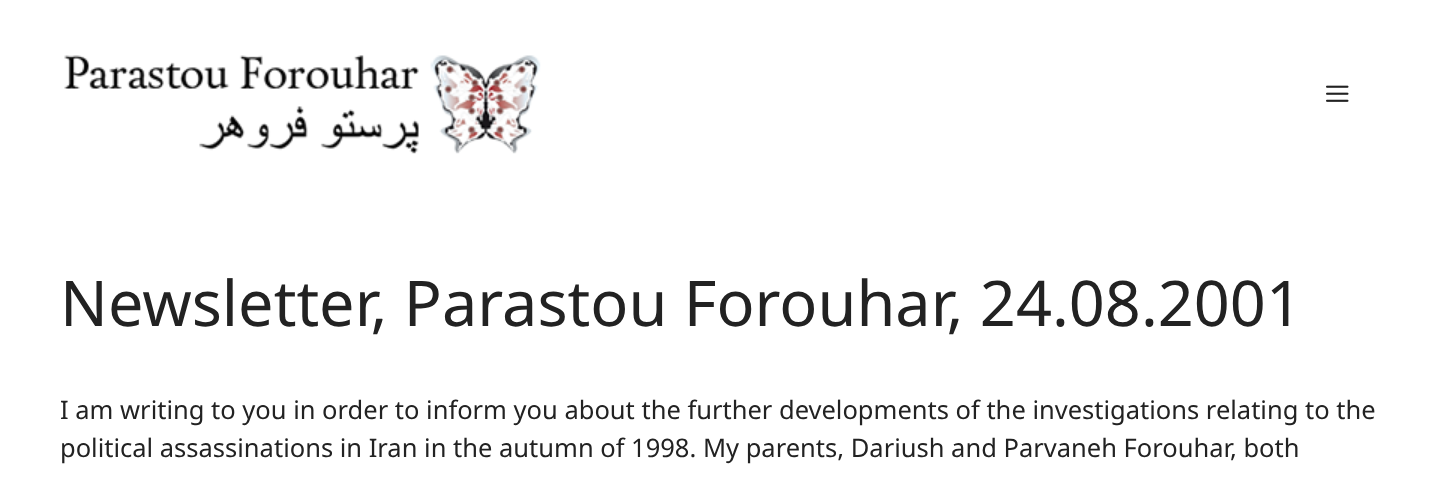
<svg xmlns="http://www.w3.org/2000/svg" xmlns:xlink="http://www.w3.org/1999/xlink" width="1438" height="488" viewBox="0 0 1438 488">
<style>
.cls-1{font:63px Noto Sans;fill:#222222}
.cls-2{font:25.5px Noto Sans;fill:#222222}
</style>
<rect width="100%" height="100%" fill="#ffffff"/>
<image xlink:href="image0.png" x="64" y="55" width="477" height="99"/>
<image xlink:href="image1.png" x="1326" y="85" width="23" height="17"/>
<text class="cls-1" x="60" y="326">Newsletter, Parastou Forouhar, 24.08.2001</text>
<text class="cls-2"><tspan x="60" y="419">I am writing to you in order to inform you about the further developments of the investigations relating to the</tspan><tspan x="60" y="457">political assassinations in Iran in the autumn of 1998. My parents, Dariush and Parvaneh Forouhar, both</tspan></text>
</svg>
